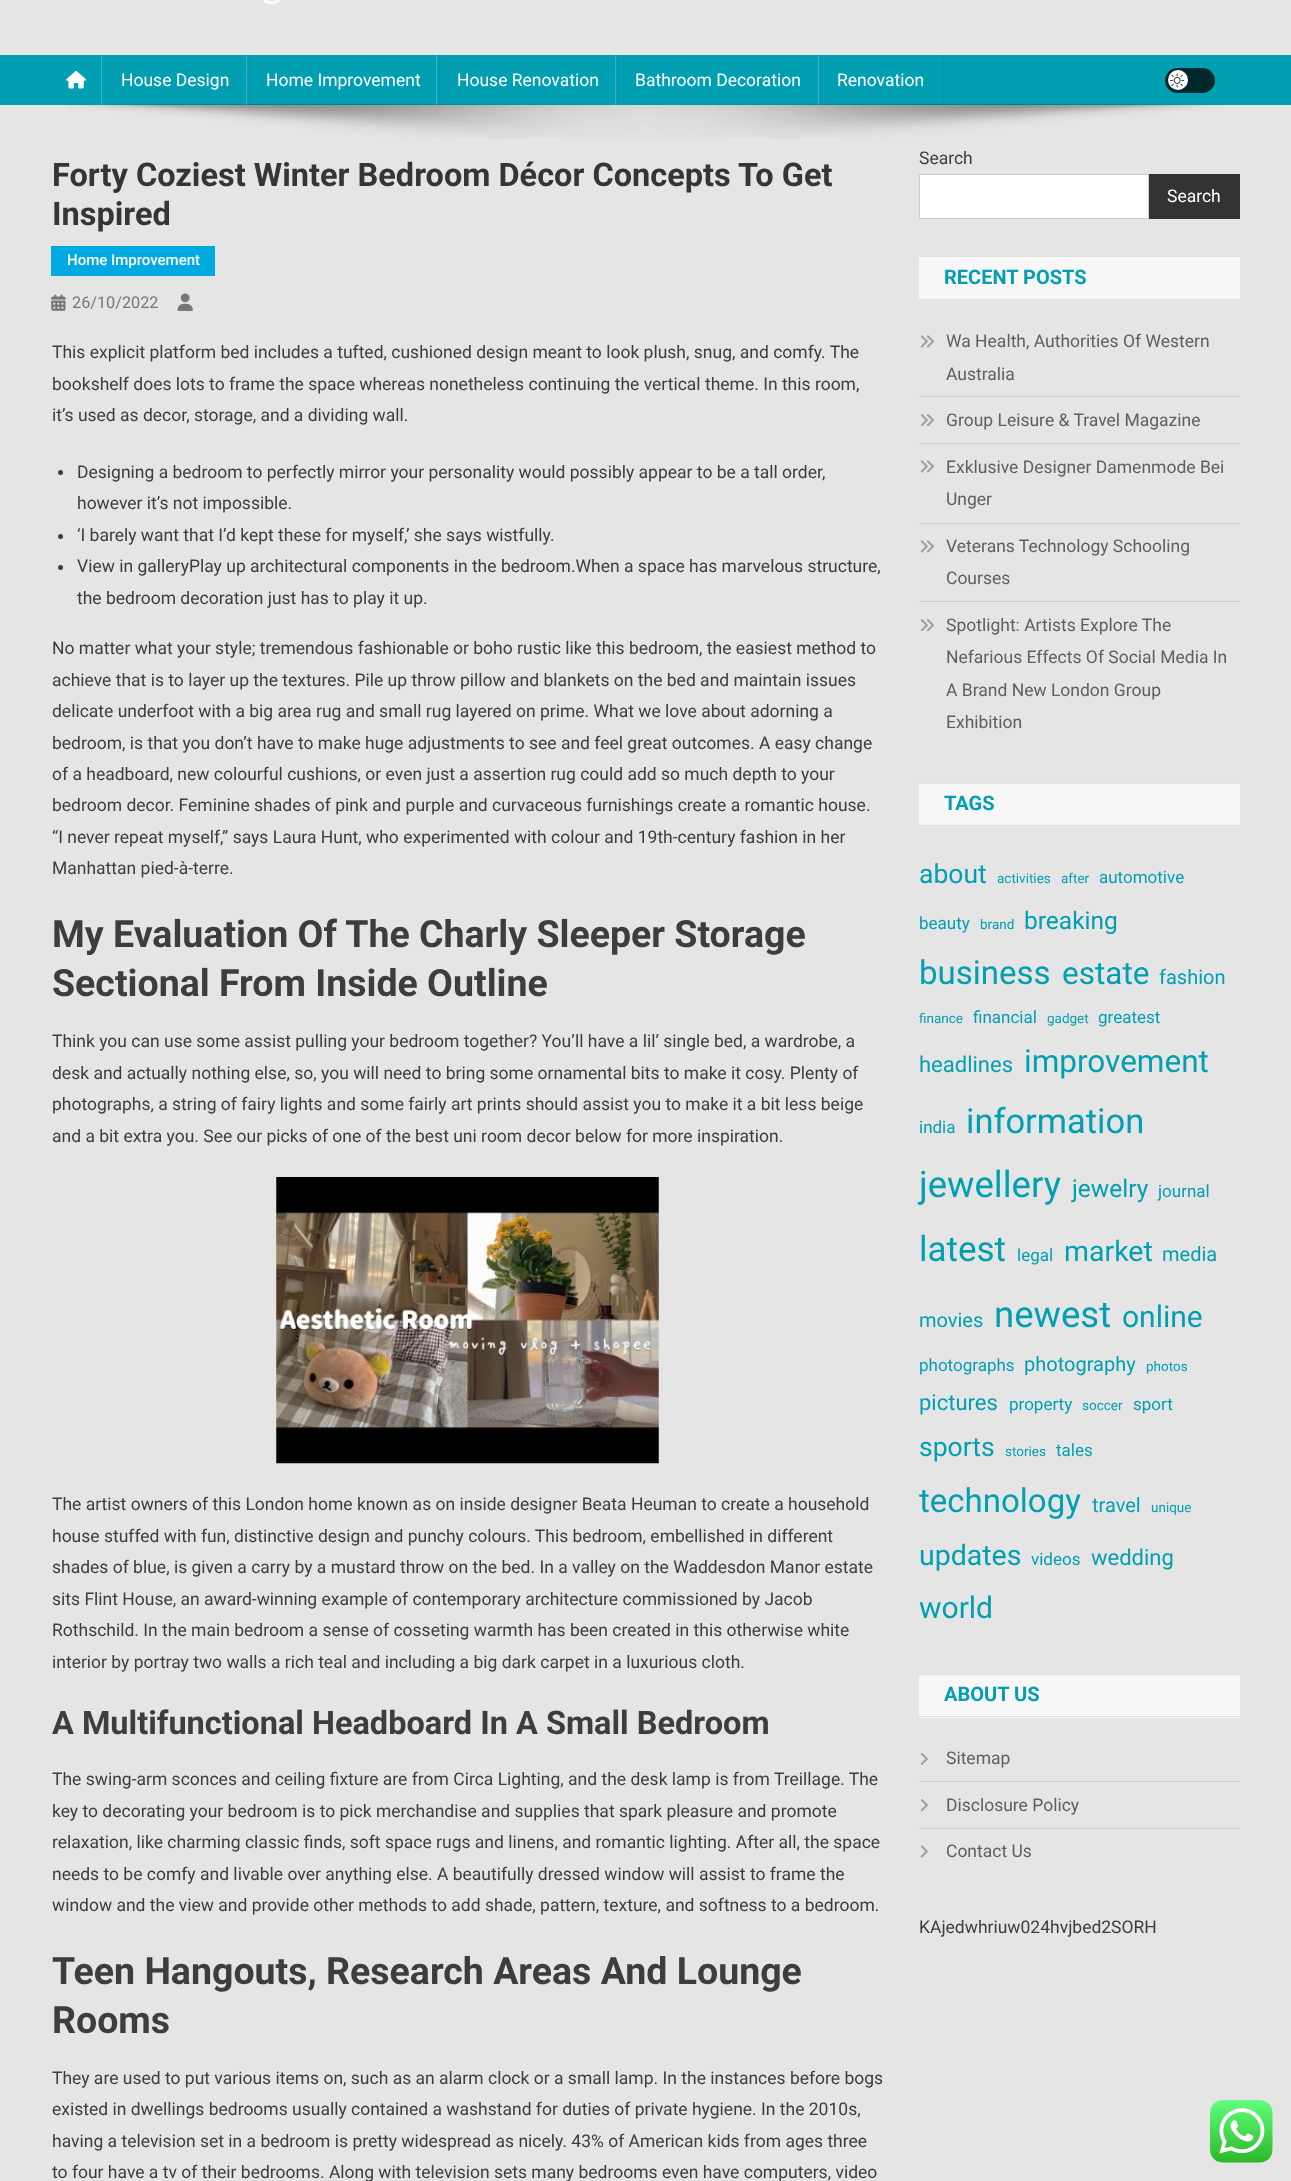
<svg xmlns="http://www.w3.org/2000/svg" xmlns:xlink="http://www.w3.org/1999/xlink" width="1291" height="2181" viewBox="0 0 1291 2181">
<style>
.cls-1{font:17.5px Roboto;fill:#ffffff}
.cls-2{font:bold 32.5px Roboto;fill:#353535}
.cls-3{font:500 15px Roboto;fill:#ffffff}
.cls-4{font:16.25px Roboto;fill:#767676}
.cls-5{font:17.5px Roboto;fill:#3d3d3d}
.cls-6{font:bold 37.5px Roboto;fill:#3d3d3d}
.cls-7{font:bold 32.5px Roboto;fill:#3d3d3d}
.cls-8{font:bold 20px Roboto;fill:#029fb2}
.cls-9{font:17.5px Roboto;fill:#5f5f5f}
.cls-10{font:26.5px Roboto;fill:#029fb2}
.cls-11{font:13.5px Roboto;fill:#029fb2}
.cls-12{font:17px Roboto;fill:#029fb2}
.cls-13{font:24.5px Roboto;fill:#029fb2}
.cls-14{font:33px Roboto;fill:#029fb2}
.cls-15{font:31.5px Roboto;fill:#029fb2}
.cls-16{font:20px Roboto;fill:#029fb2}
.cls-17{font:22px Roboto;fill:#029fb2}
.cls-18{font:34.5px Roboto;fill:#029fb2}
.cls-19{font:36.5px Roboto;fill:#029fb2}
.cls-20{font:35px Roboto;fill:#029fb2}
.cls-21{font:28.5px Roboto;fill:#029fb2}
.cls-22{font:30px Roboto;fill:#029fb2}
</style>
<rect width="100%" height="100%" fill="#e5e5e5"/>
<image xlink:href="image0.png" x="262" y="0" width="18" height="5"/>
<rect fill="#029fb2" x="0" y="55" width="1291" height="50"/>
<image xlink:href="image1.png" x="66" y="71" width="20" height="18"/>
<image xlink:href="image3.png" x="68" y="104" width="1154" height="35"/>
<rect fill="#000000" fill-opacity="0.08" x="249" y="55" width="1" height="50"/>
<rect fill="#ffffff" fill-opacity="0.2" x="101" y="55" width="1" height="50"/>
<rect fill="#000000" fill-opacity="0.08" x="439" y="55" width="1" height="50"/>
<rect fill="#ffffff" fill-opacity="0.2" x="246" y="55" width="1" height="50"/>
<rect fill="#000000" fill-opacity="0.08" x="618" y="55" width="1" height="50"/>
<rect fill="#ffffff" fill-opacity="0.2" x="436" y="55" width="1" height="50"/>
<rect fill="#000000" fill-opacity="0.08" x="820" y="55" width="1" height="50"/>
<rect fill="#ffffff" fill-opacity="0.2" x="615" y="55" width="1" height="50"/>
<rect fill="#000000" fill-opacity="0.08" x="943" y="55" width="1" height="50"/>
<rect fill="#ffffff" fill-opacity="0.2" x="818" y="55" width="1" height="50"/>
<rect fill="#01282d" x="1165" y="68" width="50" height="25" rx="12.5"/>
<circle fill="#ffffff" cx="1178" cy="80" r="10"/>
<image xlink:href="image2.png" x="1170" y="73" width="15" height="15"/>
<rect fill="#00a9e0" x="51" y="246" width="164" height="30"/>
<image xlink:href="image4.png" x="51" y="294" width="15" height="17"/>
<image xlink:href="image5.png" x="177" y="293" width="16" height="18"/>
<circle fill="#3d3d3d" cx="60.5" cy="472.5" r="2.5"/>
<circle fill="#3d3d3d" cx="60.5" cy="536.5" r="2.5"/>
<circle fill="#3d3d3d" cx="60.5" cy="567.5" r="2.5"/>
<image xlink:href="image6.png" x="276" y="1177" width="383" height="287"/>
<rect fill="#ffffff" stroke="#cccccc" x="919.5" y="174.5" width="229" height="44"/>
<rect fill="#333333" x="1149" y="174" width="91" height="45"/>
<rect fill="#f7f7f7" x="919" y="257" width="321" height="42"/>
<rect fill="#e1e1e1" x="919" y="256" width="321" height="1"/>
<rect fill="#e1e1e1" x="919" y="299" width="321" height="1"/>
<rect fill="#cecece" x="919" y="396" width="321" height="1"/>
<image xlink:href="image7.png" x="920" y="335" width="14" height="13"/>
<rect fill="#cecece" x="919" y="443" width="321" height="1"/>
<image xlink:href="image8.png" x="920" y="414" width="14" height="13"/>
<rect fill="#cecece" x="919" y="523" width="321" height="1"/>
<image xlink:href="image7.png" x="920" y="460" width="14" height="13"/>
<rect fill="#cecece" x="919" y="601" width="321" height="1"/>
<image xlink:href="image7.png" x="920" y="540" width="14" height="13"/>
<image xlink:href="image8.png" x="920" y="619" width="14" height="13"/>
<rect fill="#f7f7f7" x="919" y="784" width="321" height="41"/>
<rect fill="#e1e1e1" x="919" y="783" width="321" height="1"/>
<rect fill="#e1e1e1" x="919" y="825" width="321" height="1"/>
<rect fill="#f7f7f7" x="919" y="1675" width="321" height="43"/>
<rect fill="#e1e1e1" x="919" y="1674" width="321" height="1"/>
<rect fill="#e1e1e1" x="919" y="1716" width="321" height="1"/>
<rect fill="#cecece" x="919" y="1781" width="321" height="1"/>
<image xlink:href="image9.png" x="920" y="1752" width="8" height="13"/>
<rect fill="#cecece" x="919" y="1828" width="321" height="1"/>
<image xlink:href="image10.png" x="920" y="1799" width="8" height="13"/>
<image xlink:href="image11.png" x="920" y="1845" width="8" height="13"/>
<image xlink:href="image12.png" x="1210" y="2100" width="63" height="63"/>
<text class="cls-1" x="121" y="86">House Design</text>
<text class="cls-1" x="266" y="86">Home Improvement</text>
<text class="cls-1" x="457" y="86">House Renovation</text>
<text class="cls-1" x="635" y="86">Bathroom Decoration</text>
<text class="cls-1" x="837" y="86">Renovation</text>
<text class="cls-2"><tspan x="52" y="186">Forty Coziest Winter Bedroom Décor Concepts To Get</tspan><tspan x="52" y="225">Inspired</tspan></text>
<text class="cls-3" x="67" y="265">Home Improvement</text>
<text class="cls-4" x="72" y="308">26/10/2022</text>
<text class="cls-5"><tspan x="52" y="358">This explicit platform bed includes a tufted, cushioned design meant to look plush, snug, and comfy. The</tspan><tspan x="52" y="390">bookshelf does lots to frame the space whereas nonetheless continuing the vertical theme. In this room,</tspan><tspan x="52" y="421">it’s used as decor, storage, and a dividing wall.</tspan></text>
<text class="cls-5"><tspan x="77" y="478">Designing a bedroom to perfectly mirror your personality would possibly appear to be a tall order,</tspan><tspan x="77" y="509">however it’s not impossible.</tspan><tspan x="77" y="541">‘I barely want that I’d kept these for myself,’ she says wistfully.</tspan><tspan x="77" y="572">View in galleryPlay up architectural components in the bedroom.When a space has marvelous structure,</tspan><tspan x="77" y="604">the bedroom decoration just has to play it up.</tspan></text>
<text class="cls-5"><tspan x="52" y="654">No matter what your style; tremendous fashionable or boho rustic like this bedroom, the easiest method to</tspan><tspan x="52" y="686">achieve that is to layer up the textures. Pile up throw pillow and blankets on the bed and maintain issues</tspan><tspan x="52" y="717">delicate underfoot with a big area rug and small rug layered on prime. What we love about adorning a</tspan><tspan x="52" y="749">bedroom, is that you don’t have to make huge adjustments to see and feel great outcomes. A easy change</tspan><tspan x="52" y="780">of a headboard, new colourful cushions, or even just a assertion rug could add so much depth to your</tspan><tspan x="52" y="811">bedroom decor. Feminine shades of pink and purple and curvaceous furnishings create a romantic house.</tspan><tspan x="52" y="843">“I never repeat myself,” says Laura Hunt, who experimented with colour and 19th-century fashion in her</tspan><tspan x="52" y="874">Manhattan pied-à-terre.</tspan></text>
<text class="cls-6"><tspan x="52" y="947">My Evaluation Of The Charly Sleeper Storage</tspan><tspan x="52" y="996">Sectional From Inside Outline</tspan></text>
<text class="cls-5"><tspan x="52" y="1047">Think you can use some assist pulling your bedroom together? You’ll have a lil’ single bed, a wardrobe, a</tspan><tspan x="52" y="1079">desk and actually nothing else, so, you will need to bring some ornamental bits to make it cosy. Plenty of</tspan><tspan x="52" y="1110">photographs, a string of fairy lights and some fairly art prints should assist you to make it a bit less beige</tspan><tspan x="52" y="1142">and a bit extra you. See our picks of one of the best uni room decor below for more inspiration.</tspan></text>
<text class="cls-5"><tspan x="52" y="1510">The artist owners of this London home known as on inside designer Beata Heuman to create a household</tspan><tspan x="52" y="1542">house stuffed with fun, distinctive design and punchy colours. This bedroom, embellished in different</tspan><tspan x="52" y="1573">shades of blue, is given a carry by a mustard throw on the bed. In a valley on the Waddesdon Manor estate</tspan><tspan x="52" y="1605">sits Flint House, an award-winning example of contemporary architecture commissioned by Jacob</tspan><tspan x="52" y="1636">Rothschild. In the main bedroom a sense of cosseting warmth has been created in this otherwise white</tspan><tspan x="52" y="1668">interior by portray two walls a rich teal and including a big dark carpet in a luxurious cloth.</tspan></text>
<text class="cls-7" x="52" y="1734">A Multifunctional Headboard In A Small Bedroom</text>
<text class="cls-5"><tspan x="52" y="1785">The swing-arm sconces and ceiling fixture are from Circa Lighting, and the desk lamp is from Treillage. The</tspan><tspan x="52" y="1817">key to decorating your bedroom is to pick merchandise and supplies that spark pleasure and promote</tspan><tspan x="52" y="1848">relaxation, like charming classic finds, soft space rugs and linens, and romantic lighting. After all, the space</tspan><tspan x="52" y="1880">needs to be comfy and livable over anything else. A beautifully dressed window will assist to frame the</tspan><tspan x="52" y="1911">window and the view and provide other methods to add shade, pattern, texture, and softness to a bedroom.</tspan></text>
<text class="cls-6"><tspan x="52" y="1984">Teen Hangouts, Research Areas And Lounge</tspan><tspan x="52" y="2033">Rooms</tspan></text>
<text class="cls-5"><tspan x="52" y="2084">They are used to put various items on, such as an alarm clock or a small lamp. In the instances before bogs</tspan><tspan x="52" y="2115">existed in dwellings bedrooms usually contained a washstand for duties of private hygiene. In the 2010s,</tspan><tspan x="52" y="2147">having a television set in a bedroom is pretty widespread as nicely. 43% of American kids from ages three</tspan><tspan x="52" y="2178">to four have a tv of their bedrooms. Along with television sets many bedrooms even have computers, video</tspan></text>
<text class="cls-5" x="919" y="164">Search</text>
<text class="cls-1" x="1167" y="202">Search</text>
<text class="cls-8" x="944" y="284">RECENT POSTS</text>
<text class="cls-9"><tspan x="946" y="347">Wa Health, Authorities Of Western</tspan><tspan x="946" y="380">Australia</tspan></text>
<text class="cls-9" x="946" y="426">Group Leisure &amp; Travel Magazine</text>
<text class="cls-9"><tspan x="946" y="473">Exklusive Designer Damenmode Bei</tspan><tspan x="946" y="505">Unger</tspan></text>
<text class="cls-9"><tspan x="946" y="552">Veterans Technology Schooling</tspan><tspan x="946" y="584">Courses</tspan></text>
<text class="cls-9"><tspan x="946" y="631">Spotlight: Artists Explore The</tspan><tspan x="946" y="663">Nefarious Effects Of Social Media In</tspan><tspan x="946" y="696">A Brand New London Group</tspan><tspan x="946" y="728">Exhibition</tspan></text>
<text class="cls-8" x="944" y="810">TAGS</text>
<text class="cls-10" x="919" y="883">about</text>
<text class="cls-11" x="997" y="883">activities</text>
<text class="cls-11" x="1061" y="883">after</text>
<text class="cls-12" x="1099" y="883">automotive</text>
<text class="cls-12" x="919" y="929">beauty</text>
<text class="cls-11" x="980" y="929">brand</text>
<text class="cls-13" x="1024" y="929">breaking</text>
<text class="cls-14" x="919" y="984">business</text>
<text class="cls-15" x="1062" y="984">estate</text>
<text class="cls-16" x="1159" y="984">fashion</text>
<text class="cls-11" x="919" y="1023">finance</text>
<text class="cls-12" x="973" y="1023">financial</text>
<text class="cls-11" x="1047" y="1023">gadget</text>
<text class="cls-12" x="1098" y="1023">greatest</text>
<text class="cls-17" x="919" y="1072">headlines</text>
<text class="cls-15" x="1024" y="1072">improvement</text>
<text class="cls-12" x="919" y="1133">india</text>
<text class="cls-18" x="966" y="1133">information</text>
<text class="cls-19" x="919" y="1197">jewellery</text>
<text class="cls-13" x="1072" y="1197">jewelry</text>
<text class="cls-12" x="1158" y="1197">journal</text>
<text class="cls-20" x="919" y="1261">latest</text>
<text class="cls-12" x="1017" y="1261">legal</text>
<text class="cls-21" x="1064" y="1261">market</text>
<text class="cls-16" x="1162" y="1261">media</text>
<text class="cls-16" x="919" y="1327">movies</text>
<text class="cls-19" x="994" y="1327">newest</text>
<text class="cls-22" x="1122" y="1327">online</text>
<text class="cls-12" x="919" y="1371">photographs</text>
<text class="cls-16" x="1024" y="1371">photography</text>
<text class="cls-11" x="1146" y="1371">photos</text>
<text class="cls-17" x="919" y="1410">pictures</text>
<text class="cls-12" x="1009" y="1410">property</text>
<text class="cls-11" x="1082" y="1410">soccer</text>
<text class="cls-12" x="1133" y="1410">sport</text>
<text class="cls-10" x="919" y="1456">sports</text>
<text class="cls-11" x="1005" y="1456">stories</text>
<text class="cls-12" x="1056" y="1456">tales</text>
<text class="cls-14" x="919" y="1512">technology</text>
<text class="cls-16" x="1092" y="1512">travel</text>
<text class="cls-11" x="1151" y="1512">unique</text>
<text class="cls-21" x="919" y="1565">updates</text>
<text class="cls-12" x="1031" y="1565">videos</text>
<text class="cls-17" x="1091" y="1565">wedding</text>
<text class="cls-22" x="919" y="1618">world</text>
<text class="cls-8" x="944" y="1701">ABOUT US</text>
<text class="cls-9" x="946" y="1764">Sitemap</text>
<text class="cls-9" x="946" y="1811">Disclosure Policy</text>
<text class="cls-9" x="946" y="1857">Contact Us</text>
<text class="cls-5" x="919" y="1933">KAjedwhriuw024hvjbed2SORH</text>
</svg>
